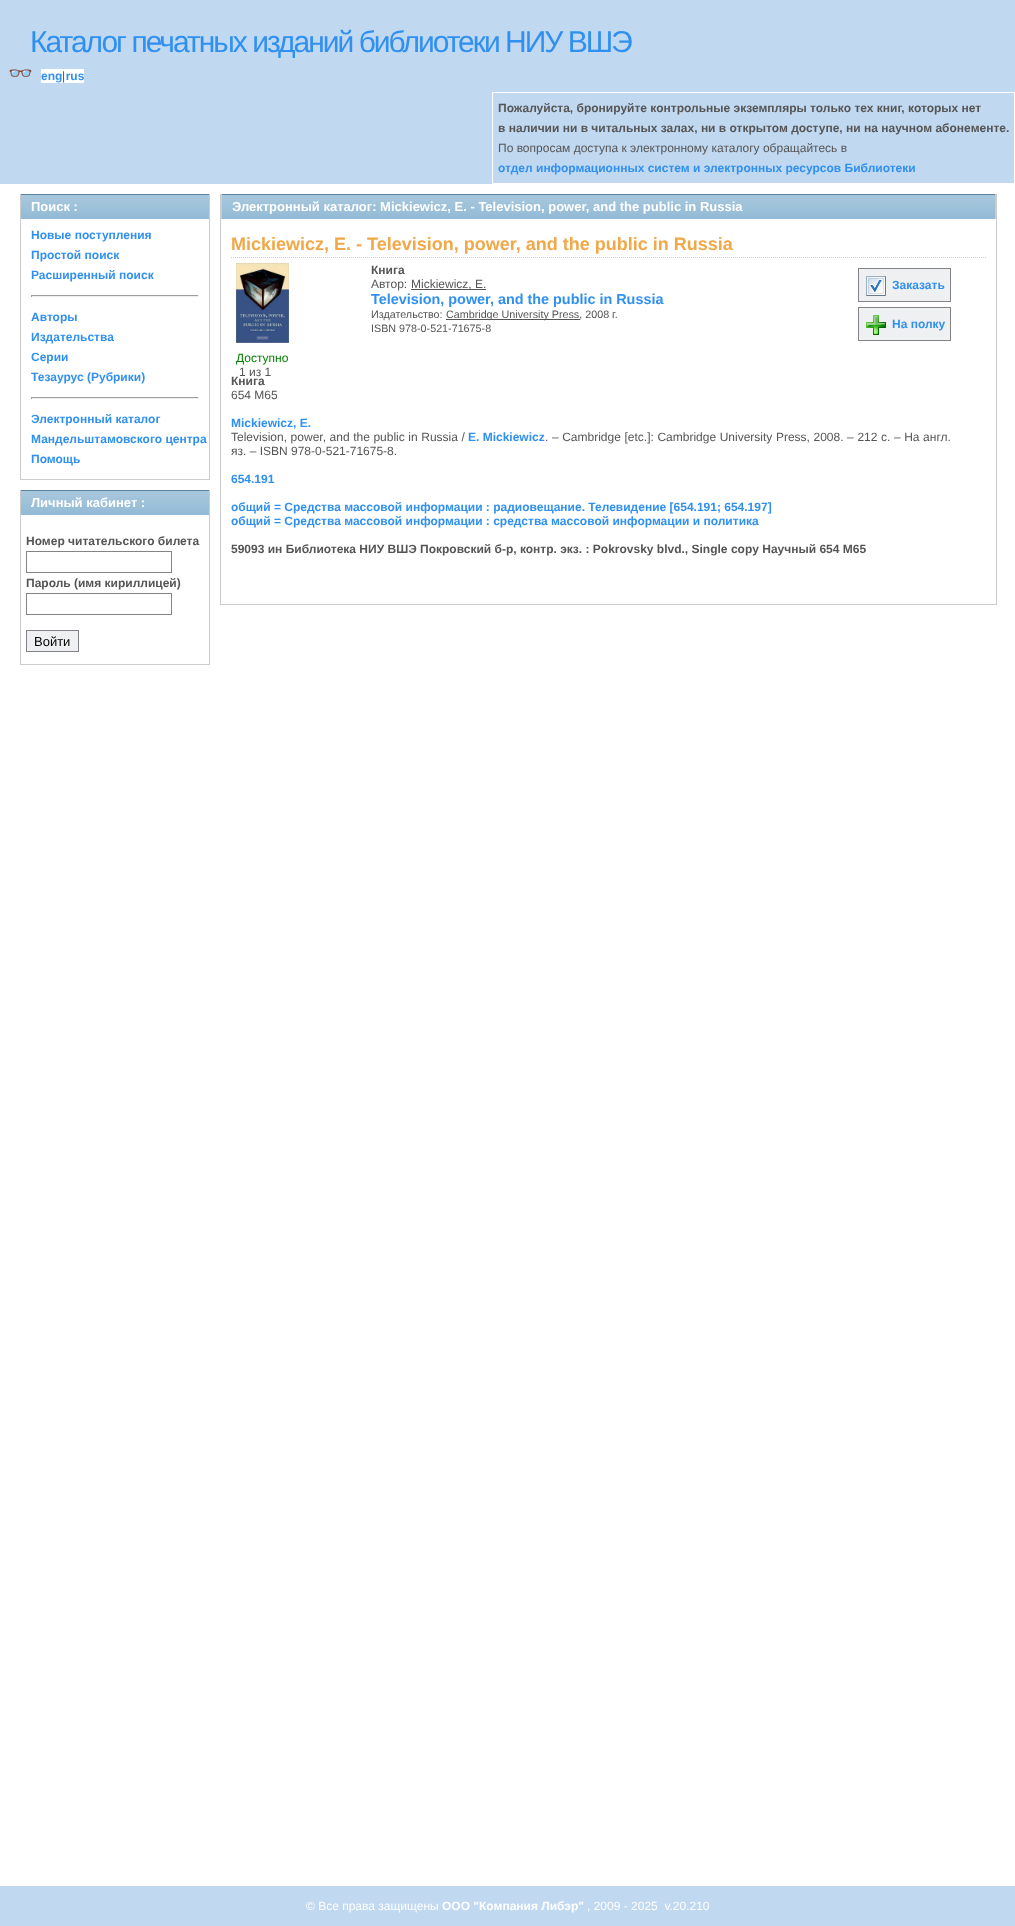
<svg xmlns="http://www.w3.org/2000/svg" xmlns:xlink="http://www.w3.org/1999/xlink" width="1015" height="1926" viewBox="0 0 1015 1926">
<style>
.cls-1{font:30px Liberation Sans;letter-spacing:-2px;fill:#3090f0}
.cls-2{font:bold 20px Noto Color Emoji;fill:#3090f0}
.cls-3{font:bold 12px Liberation Sans;fill:#3090f0}
.cls-4{font:12px Liberation Sans;fill:#555555}
.cls-5{font:bold 12px Liberation Sans;fill:#555555}
.cls-6{font:bold 13px Liberation Sans;fill:#ffffff}
.cls-7{font:13px Liberation Sans;fill:#000000}
.cls-8{font:bold 18px Liberation Sans;fill:#f0a848}
.cls-9{font:bold 14.4px Liberation Sans;fill:#3090f0}
.cls-10{font:10.75px Liberation Sans;fill:#555555}
.cls-11{font:12px Liberation Sans;fill:#008000}
.cls-12{font:12px Liberation Sans;fill:#ffffff}
.cls-13{font:bold 12px Liberation Sans;fill:#ffffff}
</style>
<rect width="100%" height="100%" fill="#ffffff"/>
<rect fill="#c0d8f0" x="0" y="0" width="1015" height="184"/>
<rect fill="#ffffff" x="41" y="69" width="43" height="14"/>
<rect fill="none" stroke="#ffffff" x="492.5" y="92.5" width="522" height="91"/>
<image xlink:href="image0.png" x="21" y="194" width="188" height="25"/>
<rect fill="#cccccc" x="209" y="194" width="1" height="286"/>
<rect fill="#cccccc" x="20" y="194" width="1" height="25"/>
<rect fill="#cccccc" x="20" y="479" width="190" height="1"/>
<rect fill="#cccccc" x="20" y="219" width="1" height="261"/>
<rect fill="#9f9f9f" x="31" y="295" width="168" height="1"/>
<rect fill="#eeeeee" x="198" y="295" width="1" height="2"/>
<rect fill="#eeeeee" x="31" y="296" width="168" height="1"/>
<rect fill="#9f9f9f" x="31" y="295" width="1" height="2"/>
<rect fill="#9f9f9f" x="31" y="397" width="168" height="1"/>
<rect fill="#eeeeee" x="198" y="397" width="1" height="2"/>
<rect fill="#eeeeee" x="31" y="398" width="168" height="1"/>
<rect fill="#9f9f9f" x="31" y="397" width="1" height="2"/>
<image xlink:href="image0.png" x="21" y="490" width="188" height="25"/>
<rect fill="#cccccc" x="209" y="490" width="1" height="175"/>
<rect fill="#cccccc" x="20" y="490" width="1" height="25"/>
<rect fill="#cccccc" x="20" y="664" width="190" height="1"/>
<rect fill="#cccccc" x="20" y="515" width="1" height="150"/>
<rect fill="none" stroke="#848388" x="26.5" y="551.5" width="145" height="21"/>
<rect fill="none" stroke="#848388" x="26.5" y="593.5" width="145" height="21"/>
<rect fill="#eef0f1" stroke="#848388" x="26.5" y="630.5" width="52" height="21"/>
<rect fill="#cccccc" x="996" y="194" width="1" height="411"/>
<rect fill="#cccccc" x="220" y="604" width="777" height="1"/>
<rect fill="#cccccc" x="220" y="194" width="1" height="411"/>
<image xlink:href="image1.png" x="222" y="194" width="773" height="25"/>
<rect fill="#cccccc" x="995" y="194" width="1" height="25"/>
<rect fill="#cccccc" x="221" y="194" width="1" height="25"/>
<path fill="none" stroke="#cccccc" stroke-dasharray="1 1" d="M231 257.5H986"/>
<rect fill="#555555" x="411" y="289" width="75" height="1"/>
<rect fill="#555555" x="446" y="319" width="134" height="1"/>
<rect fill="#eef0f1" stroke="#848388" x="858.5" y="268.5" width="92" height="33"/>
<image xlink:href="image2.png" x="866" y="276" width="20" height="20"/>
<rect fill="#eef0f1" stroke="#848388" x="858.5" y="307.5" width="92" height="33"/>
<image xlink:href="image3.png" x="866" y="315" width="20" height="20"/>
<image xlink:href="image4.png" x="236" y="263" width="53" height="80"/>
<rect fill="#c0d8f0" x="0" y="1886" width="1015" height="40"/>
<text class="cls-1" x="30" y="52">Каталог печатных изданий библиотеки НИУ ВШЭ</text>
<text class="cls-2" x="8" y="80">👓</text>
<text class="cls-3" x="41" y="80">eng rus</text>
<text class="cls-4" x="62" y="80">|</text>
<text class="cls-5"><tspan x="498" y="112">Пожалуйста, бронируйте контрольные экземпляры только тех книг, которых нет</tspan><tspan x="498" y="132">в наличии ни в читальных залах, ни в открытом доступе, ни на научном абонементе.</tspan></text>
<text class="cls-4" x="498" y="152">По вопросам доступа к электронному каталогу обращайтесь в</text>
<text class="cls-3" x="498" y="172">отдел информационных систем и электронных ресурсов Библиотеки</text>
<text class="cls-6" x="31" y="211">Поиск :</text>
<text class="cls-3"><tspan x="31" y="239">Новые поступления</tspan><tspan x="31" y="259">Простой поиск</tspan><tspan x="31" y="279">Расширенный поиск</tspan></text>
<text class="cls-3"><tspan x="31" y="321">Авторы</tspan><tspan x="31" y="341">Издательства</tspan><tspan x="31" y="361">Серии</tspan><tspan x="31" y="381">Тезаурус (Рубрики)</tspan></text>
<text class="cls-3"><tspan x="31" y="423">Электронный каталог</tspan><tspan x="31" y="443">Мандельштамовского центра</tspan><tspan x="31" y="463">Помощь</tspan></text>
<text class="cls-6" x="31" y="507">Личный кабинет :</text>
<text class="cls-5" x="26" y="545">Номер читательского билета</text>
<text class="cls-5" x="26" y="587">Пароль (имя кириллицей)</text>
<text class="cls-7" x="34" y="646">Войти</text>
<text class="cls-6" x="232" y="211">Электронный каталог: Mickiewicz, E. - Television, power, and the public in Russia</text>
<text class="cls-8" x="231" y="250">Mickiewicz, E. - Television, power, and the public in Russia</text>
<text class="cls-5" x="371" y="274">Книга</text>
<text class="cls-4" x="371" y="288">Автор:</text>
<text class="cls-4" x="411" y="288">Mickiewicz, E.</text>
<text class="cls-9" x="371" y="304">Television, power, and the public in Russia</text>
<text class="cls-10" x="371" y="318">Издательство:</text>
<text class="cls-10" x="446" y="318">Cambridge University Press, 2008 г.</text>
<text class="cls-10" x="371" y="332">ISBN 978-0-521-71675-8</text>
<text class="cls-3" x="892" y="289">Заказать</text>
<text class="cls-3" x="892" y="328">На полку</text>
<text class="cls-11" x="236" y="362">Доступно</text>
<text class="cls-4" x="239" y="376">1 из 1</text>
<text class="cls-5" x="231" y="385">Книга</text>
<text class="cls-4" x="231" y="399">654 M65</text>
<text class="cls-3" x="231" y="427">Mickiewicz, E.</text>
<text class="cls-4" x="231" y="441" word-spacing="0.25">Television, power, and the public in Russia /</text>
<text class="cls-3" x="468" y="441">E. Mickiewicz</text>
<text class="cls-4" x="545" y="441" word-spacing="0.25">. – Cambridge [etc.]: Cambridge University Press, 2008. – 212 с. – На англ.</text>
<text class="cls-4" x="231" y="455">яз. – ISBN 978-0-521-71675-8.</text>
<text class="cls-3" x="231" y="483">654.191</text>
<text class="cls-3"><tspan x="231" y="511">общий = Средства массовой информации : радиовещание. Телевидение [654.191; 654.197]</tspan><tspan x="231" y="525">общий = Средства массовой информации : средства массовой информации и политика</tspan></text>
<text class="cls-5" x="231" y="553">59093 ин Библиотека НИУ ВШЭ Покровский б-р, контр. экз. : Pokrovsky blvd., Single copy Научный 654 M65</text>
<text class="cls-12" x="306" y="1910">© Все права защищены</text>
<text class="cls-13" x="442" y="1910">ООО "Компания Либэр"</text>
<text class="cls-12" xml:space="preserve" x="587" y="1910">, 2009 - 2025  v.20.210</text>
</svg>
